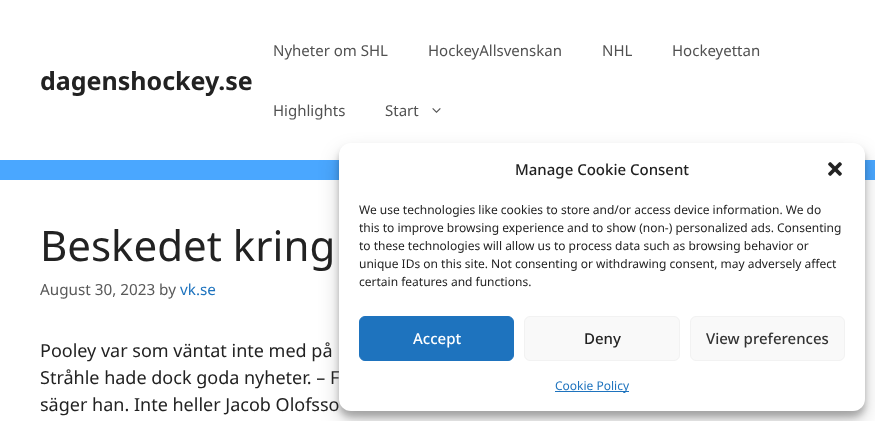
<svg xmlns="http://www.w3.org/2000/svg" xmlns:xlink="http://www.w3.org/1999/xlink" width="875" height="421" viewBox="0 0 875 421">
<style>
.cls-1{font:bold 25px Noto Sans;fill:#222222}
.cls-2{font:15px Noto Sans;fill:#515151}
.cls-3{font:42px Noto Sans;fill:#222222}
.cls-4{font:15.25px Noto Sans;fill:#595959}
.cls-5{font:15.25px Noto Sans;fill:#1e73be}
.cls-6{font:18px Noto Sans;fill:#222222}
.cls-7{font:500 15px Noto Sans;fill:#222222}
.cls-8{font:12px Noto Sans;fill:#222222}
.cls-9{font:500 15px Noto Sans;fill:#ffffff}
.cls-10{font:500 15px Noto Sans;fill:#333333}
.cls-11{font:12px Noto Sans;fill:#1e73be}
</style>
<rect width="100%" height="100%" fill="#4aa7ff"/>
<rect fill="#ffffff" x="0" y="0" width="875" height="160"/>
<image xlink:href="image0.png" x="432" y="108" width="9" height="5"/>
<rect fill="#ffffff" x="0" y="180" width="875" height="241"/>
<rect fill="#000000" fill-opacity="0.23" filter="blur(3px)" x="339" y="149" width="526" height="268" rx="12"/>
<rect fill="#000000" fill-opacity="0.19" filter="blur(10px)" x="339" y="153" width="526" height="268" rx="12"/>
<rect fill="#ffffff" x="339" y="143" width="526" height="268" rx="12"/>
<image xlink:href="image1.png" x="828" y="162" width="14" height="14"/>
<rect fill="#1e73be" stroke="#1e73be" x="359.5" y="316.5" width="154" height="44" rx="5.5"/>
<rect fill="#f9f9f9" stroke="#f2f2f2" x="524.5" y="316.5" width="155" height="44" rx="5.5"/>
<rect fill="#f9f9f9" stroke="#f2f2f2" x="690.5" y="316.5" width="154" height="44" rx="5.5"/>
<rect fill="#1e73be" x="555" y="391" width="74" height="1"/>
<text class="cls-1" x="40" y="90">dagenshockey.se</text>
<text class="cls-2" x="273" y="56">Nyheter om SHL</text>
<text class="cls-2" x="428" y="56">HockeyAllsvenskan</text>
<text class="cls-2" x="602" y="56">NHL</text>
<text class="cls-2" x="672" y="56">Hockeyettan</text>
<text class="cls-2" x="273" y="116">Highlights</text>
<text class="cls-2" x="385" y="116">Start</text>
<text class="cls-3" x="40" y="261">Beskedet kring</text>
<text class="cls-4" x="40" y="295">August 30, 2023 by</text>
<text class="cls-5" x="180" y="295">vk.se</text>
<text class="cls-6"><tspan x="40" y="357">Pooley var som väntat inte med på</tspan><tspan x="40" y="384">Stråhle hade dock goda nyheter. – F</tspan><tspan x="40" y="411">säger han. Inte heller Jacob Olofsso</tspan></text>
<text class="cls-7" x="515" y="175">Manage Cookie Consent</text>
<text class="cls-8"><tspan x="359" y="214">We use technologies like cookies to store and/or access device information. We do</tspan><tspan x="359" y="232">this to improve browsing experience and to show (non-) personalized ads. Consenting</tspan><tspan x="359" y="250">to these technologies will allow us to process data such as browsing behavior or</tspan><tspan x="359" y="268">unique IDs on this site. Not consenting or withdrawing consent, may adversely affect</tspan><tspan x="359" y="286">certain features and functions.</tspan></text>
<text class="cls-9" x="413" y="344">Accept</text>
<text class="cls-7" x="584" y="344">Deny</text>
<text class="cls-10" x="706" y="344">View preferences</text>
<text class="cls-11" x="555" y="390">Cookie Policy</text>
</svg>
